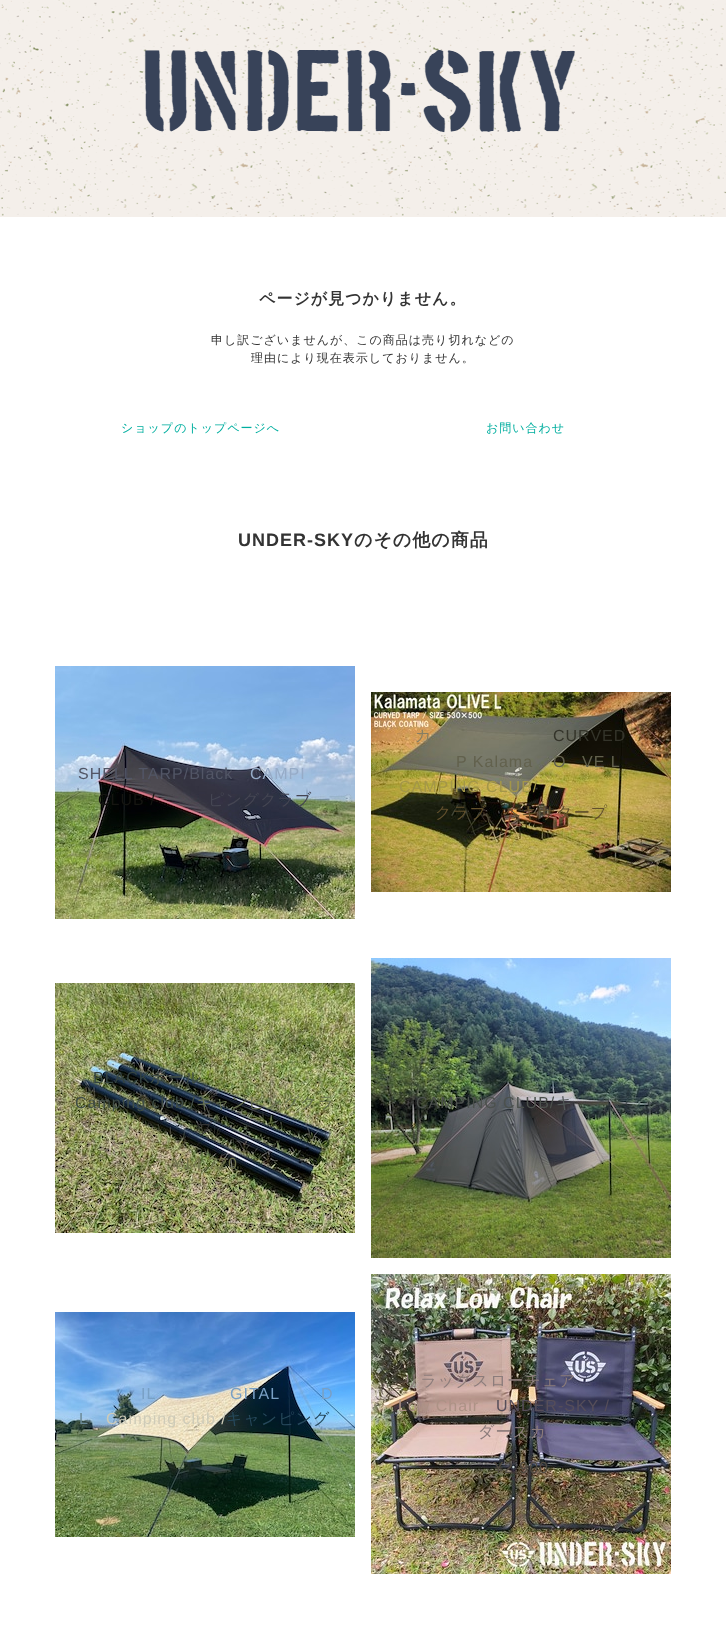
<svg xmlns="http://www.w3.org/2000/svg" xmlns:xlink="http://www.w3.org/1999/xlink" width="726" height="1632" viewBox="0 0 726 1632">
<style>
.cls-1{font:bold 16px WenQuanYi Zen Hei;letter-spacing:1px;fill:#333333}
.cls-2{font:500 12px WenQuanYi Zen Hei;letter-spacing:1px;fill:#333333}
.cls-3{font:500 12px WenQuanYi Zen Hei;letter-spacing:1px;fill:#00ae9f}
.cls-4{font:bold 18px Liberation Sans;letter-spacing:1px;fill:#333333}
.cls-5{font:bold 18px WenQuanYi Zen Hei;letter-spacing:1px;fill:#333333}
.cls-6{font:16px Liberation Sans;letter-spacing:1px;fill:#525666}
.cls-7{font:16px Liberation Sans;letter-spacing:1px;fill:#96abc7}
.cls-8{font:16px Liberation Sans;letter-spacing:1px;fill:#151511}
.cls-9{font:500 16px WenQuanYi Zen Hei;letter-spacing:1px;fill:#454653}
.cls-10{font:500 16px WenQuanYi Zen Hei;letter-spacing:1px;fill:#867e64}
.cls-11{font:16px Liberation Sans;letter-spacing:1px;fill:#34342a}
.cls-12{font:16px Liberation Sans;letter-spacing:1px;fill:#62614d}
.cls-13{font:16px Liberation Sans;letter-spacing:1px;fill:#a39649}
.cls-14{font:500 16px WenQuanYi Zen Hei;letter-spacing:1px;fill:#62502d}
.cls-15{font:16px Liberation Sans;letter-spacing:1px;fill:#344341}
.cls-16{font:500 16px WenQuanYi Zen Hei;letter-spacing:1px;fill:#404d46}
.cls-17{font:16px Liberation Sans;letter-spacing:1px;fill:#404d46}
.cls-18{font:500 16px WenQuanYi Zen Hei;letter-spacing:1px;fill:#677151}
.cls-19{font:500 16px WenQuanYi Zen Hei;letter-spacing:1px;fill:#333333}
.cls-20{font:16px Liberation Sans;letter-spacing:1px;fill:#70734e}
.cls-21{font:16px Liberation Sans;letter-spacing:1px;fill:#4c514d}
.cls-22{font:500 16px WenQuanYi Zen Hei;letter-spacing:1px;fill:#525958}
.cls-23{font:16px Liberation Sans;letter-spacing:1px;fill:#79a0c5}
.cls-24{font:16px Liberation Sans;letter-spacing:1px;fill:#6b8b99}
.cls-25{font:16px Liberation Sans;letter-spacing:1px;fill:#cecbb8}
.cls-26{font:500 16px WenQuanYi Zen Hei;letter-spacing:1px;fill:#26485b}
.cls-27{font:500 16px WenQuanYi Zen Hei;letter-spacing:1px;fill:#8c7c7b}
.cls-28{font:16px Liberation Sans;letter-spacing:1px;fill:#ad9286}
.cls-29{font:16px Liberation Sans;letter-spacing:1px;fill:#564e5a}
.cls-30{font:16px Liberation Sans;letter-spacing:1px;fill:#514b42}
</style>
<rect width="100%" height="100%" fill="#ffffff"/>
<image xlink:href="image0.png" x="0" y="0" width="726" height="217"/>
<image xlink:href="image1.png" x="144" y="50" width="431" height="83"/>
<image xlink:href="image2.png" x="55" y="666" width="300" height="253"/>
<image xlink:href="image3.png" x="371" y="692" width="300" height="200"/>
<image xlink:href="image4.png" x="55" y="983" width="300" height="250"/>
<image xlink:href="image5.png" x="371" y="958" width="300" height="300"/>
<image xlink:href="image6.png" x="55" y="1312" width="300" height="225"/>
<image xlink:href="image7.png" x="371" y="1274" width="300" height="300"/>
<text class="cls-1" x="259" y="304">ページが見つかりません。</text>
<text class="cls-2" x="211" y="344">申し訳ございませんが、この商品は売り切れなどの</text>
<text class="cls-2" x="251" y="362">理由により現在表示しておりません。</text>
<text class="cls-3" x="121" y="432">ショップのトップページへ</text>
<text class="cls-3" x="486" y="432">お問い合わせ</text>
<text class="cls-4" x="238" y="546">UNDER-SKY</text>
<text class="cls-5" x="354" y="546">のその他の商品</text>
<text class="cls-6" x="78" y="779">SHELL TARP/Black</text>
<text class="cls-7" x="250" y="779">CAMPI</text>
<text class="cls-8" x="98" y="805">CLUB /</text>
<text class="cls-9" x="208" y="805">ピングクラブ</text>
<text class="cls-10" x="415" y="741">カ</text>
<text class="cls-11" x="553" y="741">CURVED</text>
<text class="cls-12" x="456" y="767">P Kalama</text>
<text class="cls-12" x="553" y="767">O</text>
<text class="cls-12" x="582" y="767">VE L</text>
<text class="cls-13" x="399" y="792">CAMPING CLUB/</text>
<text class="cls-14" x="435" y="818">クラブ　ヘキサタープ</text>
<text class="cls-15" x="93" y="1083">BLACK</text>
<text class="cls-16" x="150" y="1083">ポール</text>
<text class="cls-17" x="75" y="1108">Camping club /</text>
<text class="cls-18" x="196" y="1108">キャンピングクラ</text>
<text class="cls-19" x="196" y="1134">ブ</text>
<text class="cls-20" x="173" y="1169">¥14,720</text>
<text class="cls-21" x="416" y="1108">CAMPING CLUB/</text>
<text class="cls-22" x="556" y="1108">キ</text>
<text class="cls-23" x="141" y="1399">IL</text>
<text class="cls-23" x="230" y="1399">GITAL</text>
<text class="cls-23" x="321" y="1399">D</text>
<text class="cls-24" x="79" y="1424">L</text>
<text class="cls-25" x="106" y="1424">Camping club /</text>
<text class="cls-26" x="226" y="1424">キャンピング</text>
<text class="cls-27" x="403" y="1386">リラックスローチェア</text>
<text class="cls-28" x="398" y="1411">Low Chair</text>
<text class="cls-29" x="496" y="1411">UNDER-SKY /</text>
<text class="cls-27" x="478" y="1437">ダースカ</text>
<text class="cls-30" x="494" y="1473">¥2,900</text>
</svg>
